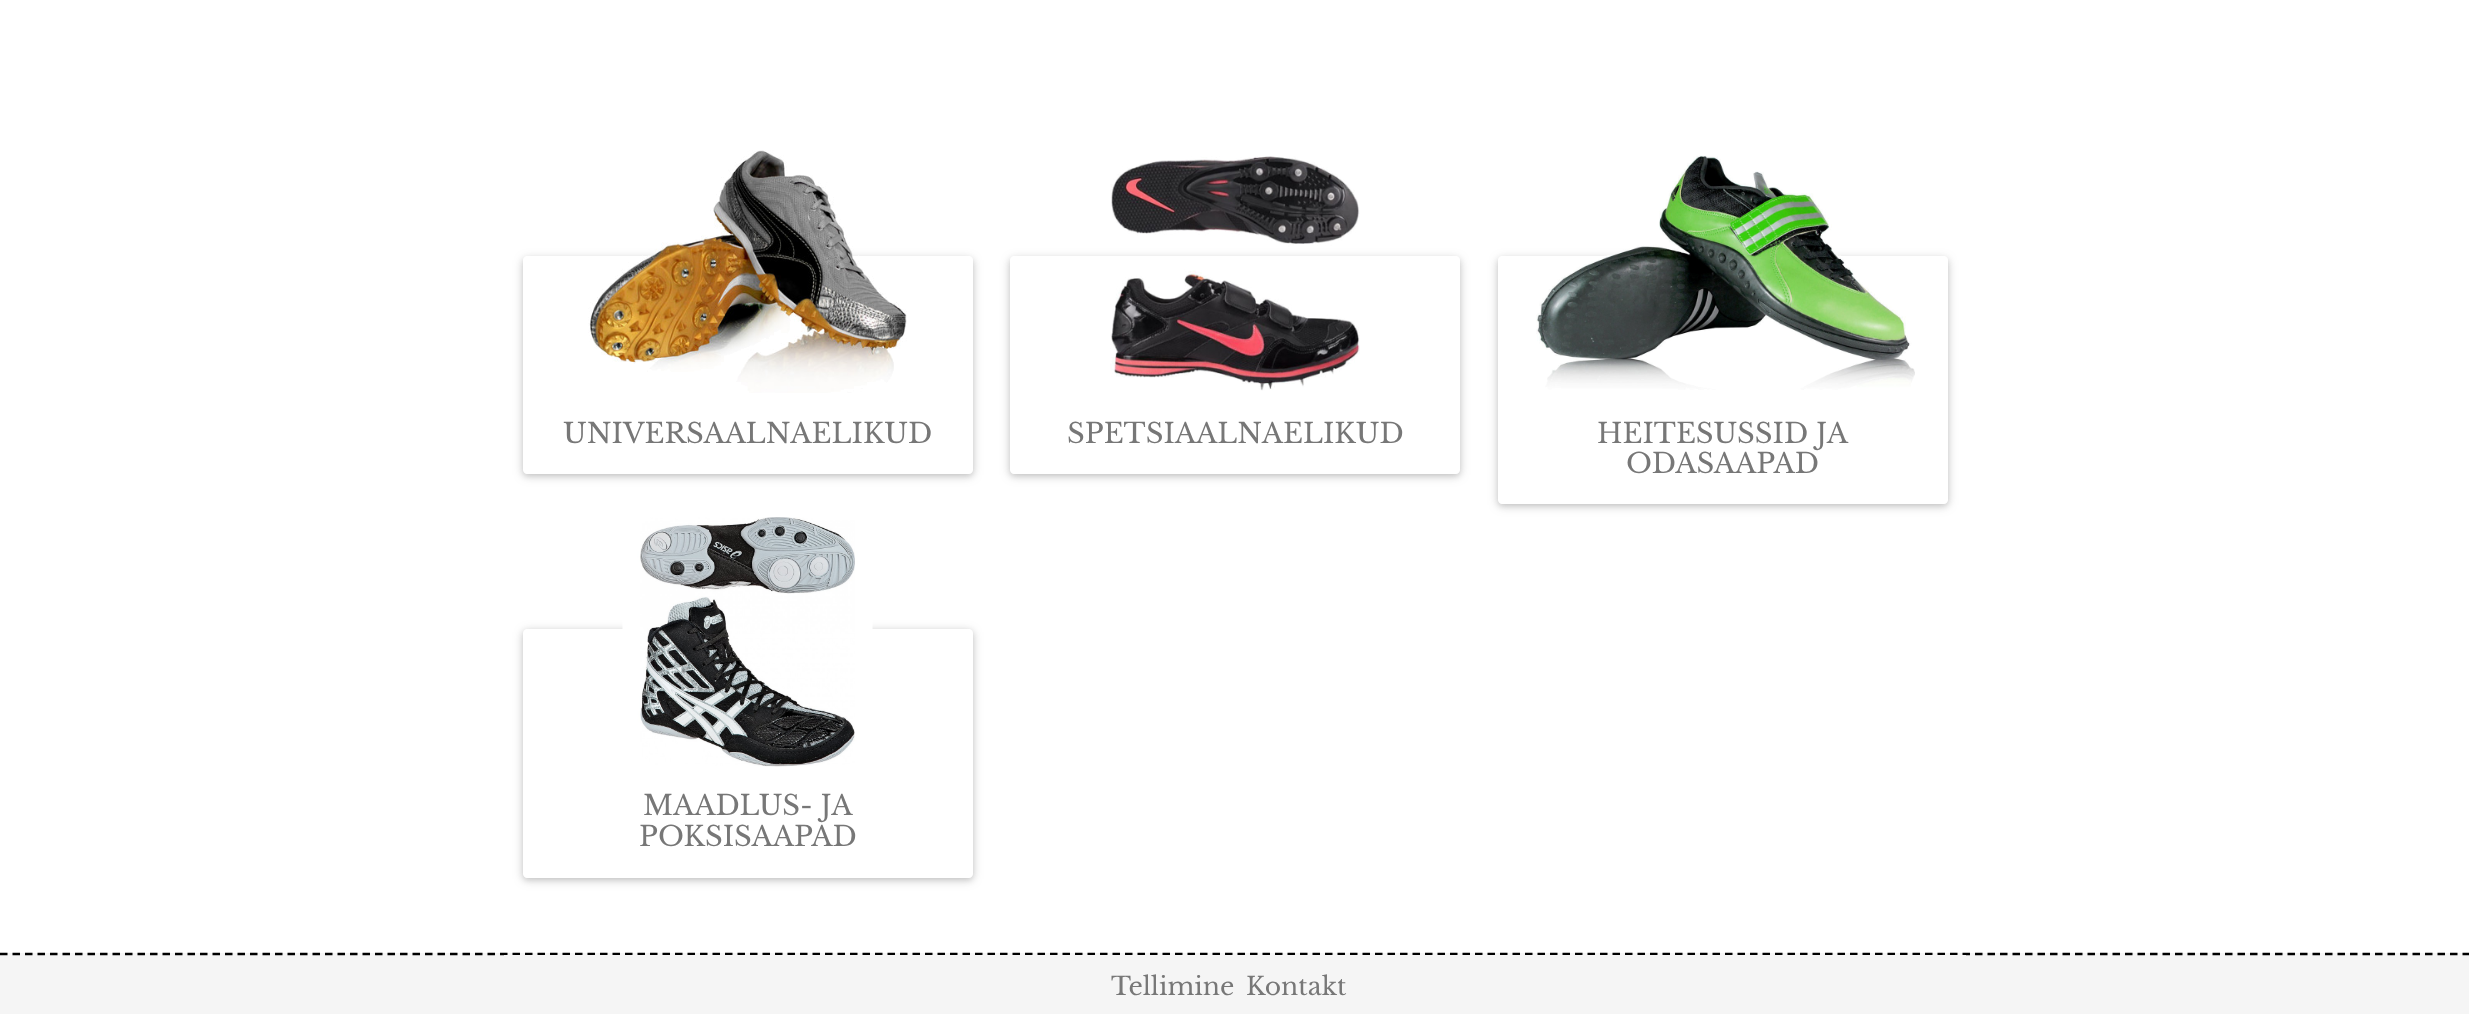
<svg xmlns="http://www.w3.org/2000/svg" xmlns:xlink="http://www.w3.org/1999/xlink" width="2469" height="1014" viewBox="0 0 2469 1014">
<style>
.cls-1{font:27.5px Libre Baskerville;fill:#777777}
.cls-2{font:25px Libre Baskerville;fill:#777777}
</style>
<defs>
<clipPath id="clip1"><path d="M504 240H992V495H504ZM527 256H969C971 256 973 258 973 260V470C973 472 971 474 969 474H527C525 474 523 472 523 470V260C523 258 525 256 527 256Z" clip-rule="evenodd"/></clipPath>
<clipPath id="clip2"><path d="M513 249H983V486H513ZM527 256H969C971 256 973 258 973 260V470C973 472 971 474 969 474H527C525 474 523 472 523 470V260C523 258 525 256 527 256Z" clip-rule="evenodd"/></clipPath>
<clipPath id="clip3"><path d="M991 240H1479V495H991ZM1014 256H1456C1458 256 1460 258 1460 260V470C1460 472 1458 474 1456 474H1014C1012 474 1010 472 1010 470V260C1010 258 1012 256 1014 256Z" clip-rule="evenodd"/></clipPath>
<clipPath id="clip4"><path d="M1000 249H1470V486H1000ZM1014 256H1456C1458 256 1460 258 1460 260V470C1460 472 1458 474 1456 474H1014C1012 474 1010 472 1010 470V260C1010 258 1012 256 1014 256Z" clip-rule="evenodd"/></clipPath>
<clipPath id="clip5"><path d="M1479 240H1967V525H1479ZM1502 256H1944C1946 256 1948 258 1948 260V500C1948 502 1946 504 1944 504H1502C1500 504 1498 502 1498 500V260C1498 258 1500 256 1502 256Z" clip-rule="evenodd"/></clipPath>
<clipPath id="clip6"><path d="M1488 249H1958V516H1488ZM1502 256H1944C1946 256 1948 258 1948 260V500C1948 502 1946 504 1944 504H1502C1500 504 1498 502 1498 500V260C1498 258 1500 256 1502 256Z" clip-rule="evenodd"/></clipPath>
<clipPath id="clip7"><path d="M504 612H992V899H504ZM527 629H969C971 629 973 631 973 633V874C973 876 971 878 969 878H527C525 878 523 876 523 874V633C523 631 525 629 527 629Z" clip-rule="evenodd"/></clipPath>
<clipPath id="clip8"><path d="M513 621H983V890H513ZM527 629H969C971 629 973 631 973 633V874C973 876 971 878 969 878H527C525 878 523 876 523 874V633C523 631 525 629 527 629Z" clip-rule="evenodd"/></clipPath>
</defs>
<rect width="100%" height="100%" fill="#ffffff"/>
<g clip-path="url(#clip1)">
<rect fill="#000000" fill-opacity="0.12" filter="blur(6px)" x="523" y="259" width="450" height="217" rx="4"/>
</g>
<g clip-path="url(#clip2)">
<rect fill="#000000" fill-opacity="0.16" filter="blur(3px)" x="523" y="259" width="450" height="217" rx="4"/>
</g>
<image xlink:href="image0.png" x="588" y="150" width="319" height="243"/>
<g clip-path="url(#clip3)">
<rect fill="#000000" fill-opacity="0.12" filter="blur(6px)" x="1010" y="259" width="450" height="217" rx="4"/>
</g>
<g clip-path="url(#clip4)">
<rect fill="#000000" fill-opacity="0.16" filter="blur(3px)" x="1010" y="259" width="450" height="217" rx="4"/>
</g>
<image xlink:href="image1.png" x="1110" y="156" width="250" height="235"/>
<g clip-path="url(#clip5)">
<rect fill="#000000" fill-opacity="0.12" filter="blur(6px)" x="1498" y="259" width="450" height="247" rx="4"/>
</g>
<g clip-path="url(#clip6)">
<rect fill="#000000" fill-opacity="0.16" filter="blur(3px)" x="1498" y="259" width="450" height="247" rx="4"/>
</g>
<image xlink:href="image2.png" x="1536" y="155" width="379" height="235"/>
<g clip-path="url(#clip7)">
<rect fill="#000000" fill-opacity="0.12" filter="blur(6px)" x="523" y="631" width="450" height="249" rx="4"/>
</g>
<g clip-path="url(#clip8)">
<rect fill="#000000" fill-opacity="0.16" filter="blur(3px)" x="523" y="631" width="450" height="249" rx="4"/>
</g>
<image xlink:href="image3.png" x="622" y="517" width="251" height="250"/>
<rect fill="#f5f5f5" x="0" y="953" width="2469" height="61"/>
<path fill="none" stroke="#000000" stroke-width="2.5" stroke-dasharray="7.5 5" d="M0 954H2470"/>
<rect fill="#f5f5f5" x="504" y="955" width="1462" height="1"/>
<text class="cls-1" x="563" y="443">UNIVERSAALNAELIKUD</text>
<text class="cls-1" x="1067" y="443">SPETSIAALNAELIKUD</text>
<text class="cls-1" x="1597" y="443">HEITESUSSID JA</text>
<text class="cls-1" x="1626" y="473">ODASAAPAD</text>
<text class="cls-1" x="643" y="815">MAADLUS- JA</text>
<text class="cls-1" x="639" y="846">POKSISAAPAD</text>
<text class="cls-2" x="1111" y="995">Tellimine</text>
<text class="cls-2" x="1246" y="995">Kontakt</text>
</svg>
